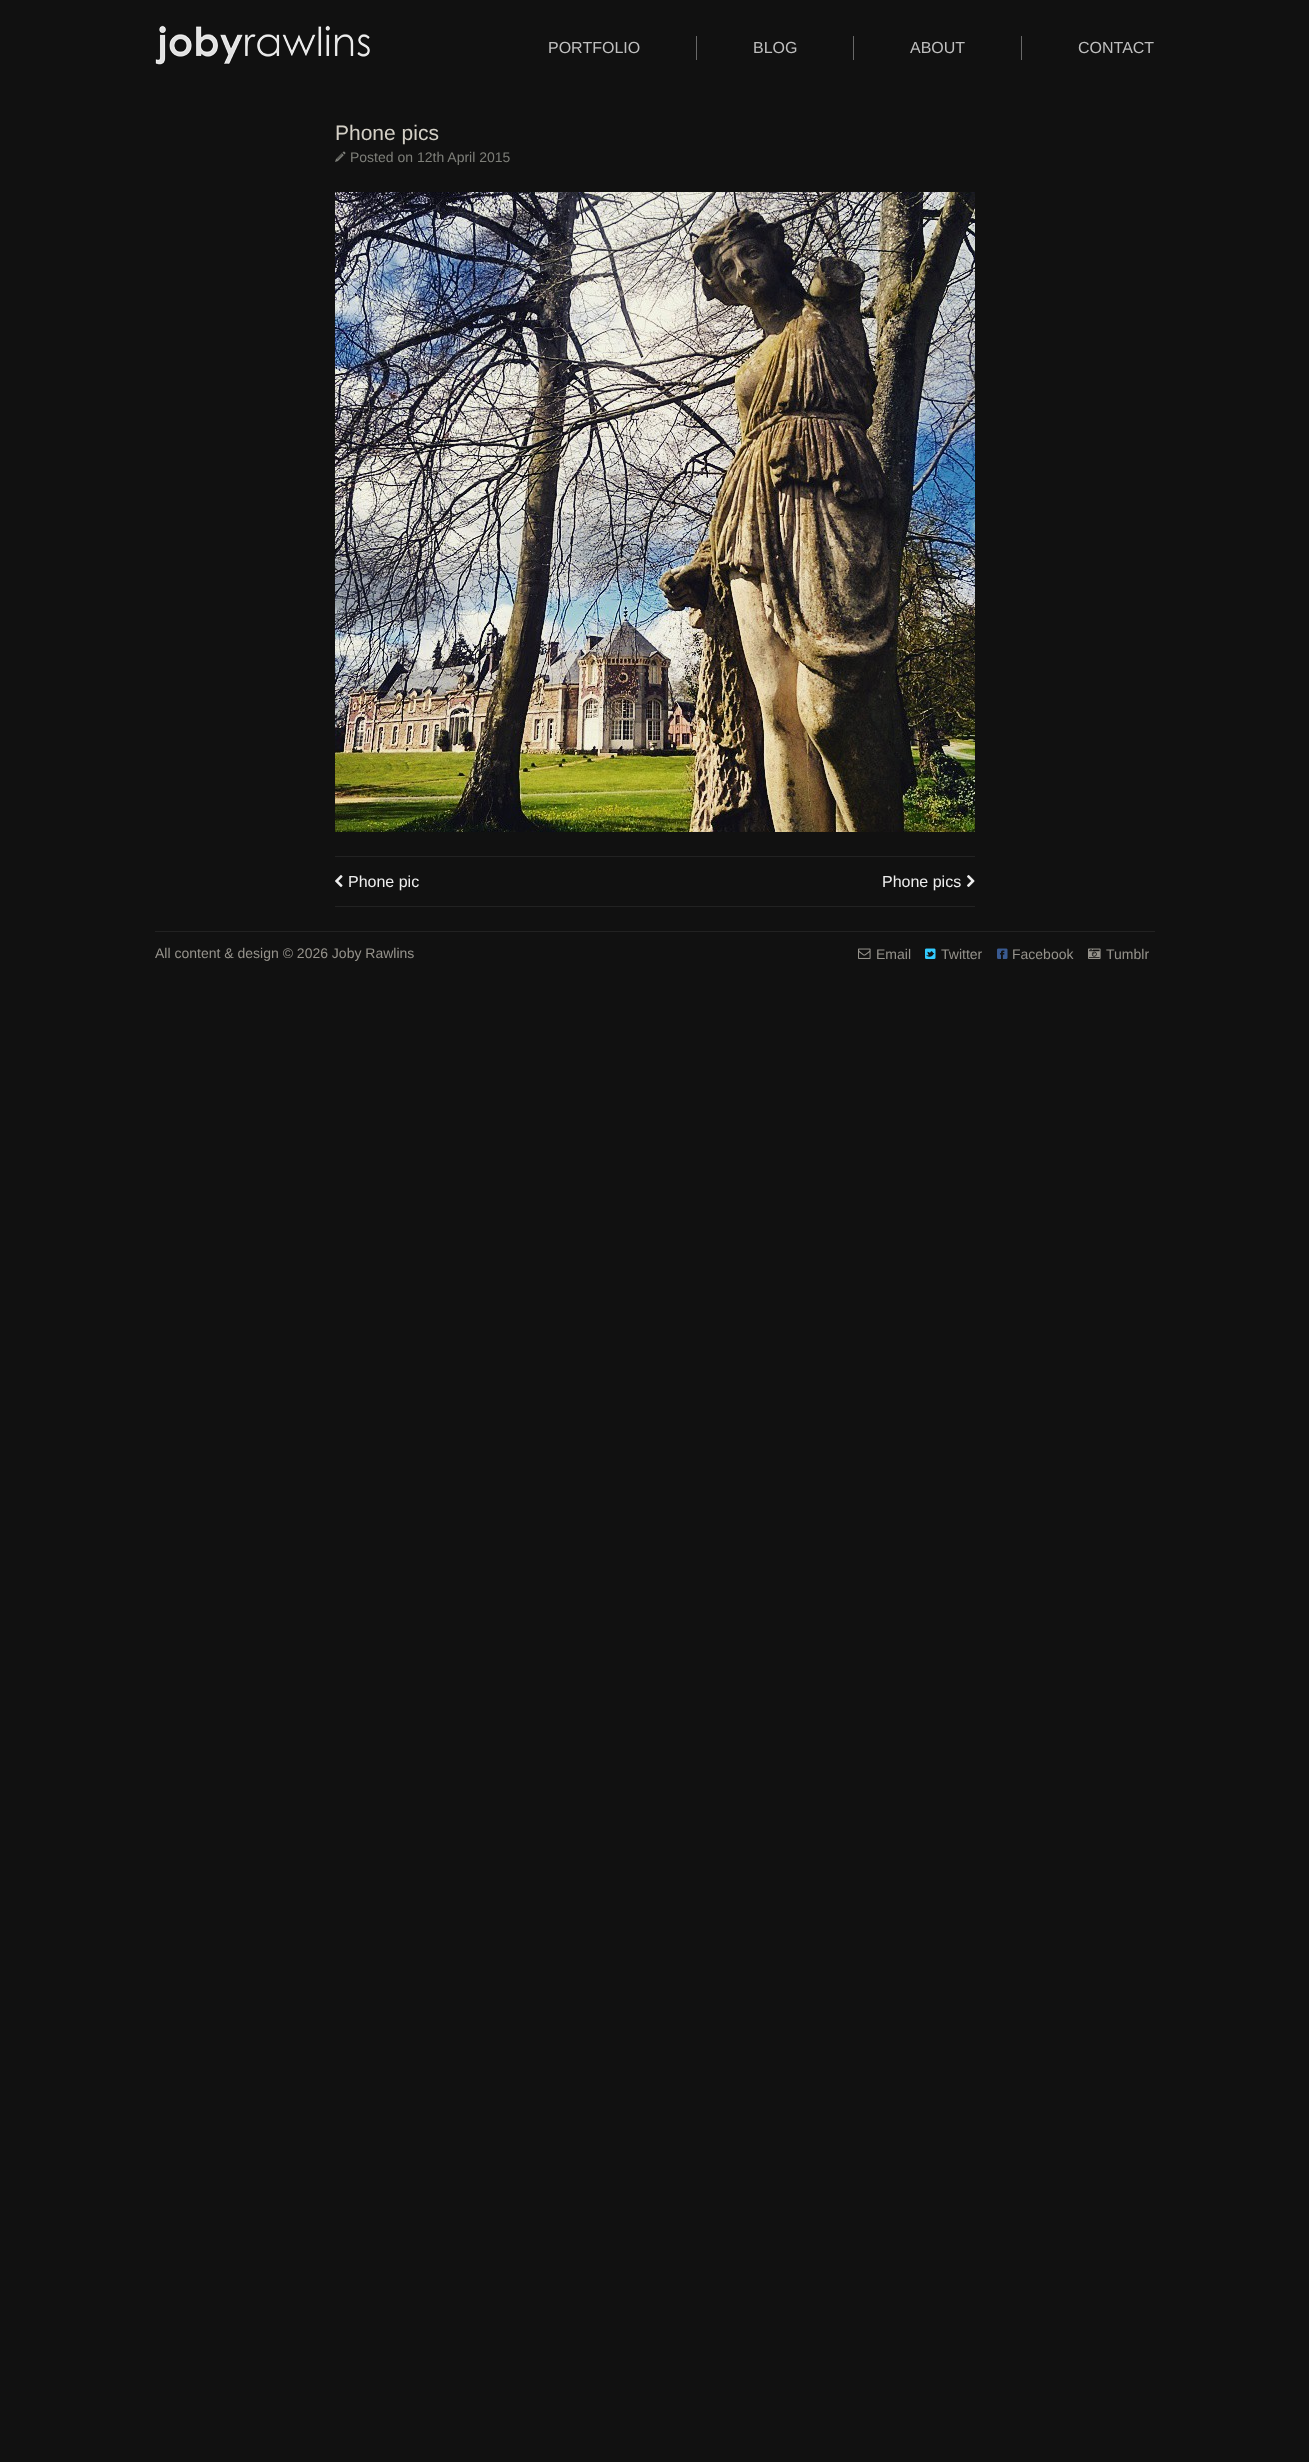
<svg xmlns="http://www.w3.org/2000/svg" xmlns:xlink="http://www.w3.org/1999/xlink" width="1309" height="2462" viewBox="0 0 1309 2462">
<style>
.cls-1{font:16px Liberation Sans;fill:#bfbfbf}
.cls-2{font:21px Liberation Sans;fill:#d4d0c6}
.cls-3{font:14px Liberation Sans;fill:#7e7f79}
.cls-4{font:16px Liberation Sans;fill:#eeeeee}
.cls-5{font:14px Liberation Sans;fill:#96938c}
</style>
<rect width="100%" height="100%" fill="#111111"/>
<image xlink:href="image0.png" x="155" y="25" width="215" height="40"/>
<rect fill="#686868" x="696" y="36" width="1" height="24"/>
<rect fill="#686868" x="853" y="36" width="1" height="24"/>
<rect fill="#686868" x="1021" y="36" width="1" height="24"/>
<image xlink:href="image1.png" x="335" y="151" width="11" height="11"/>
<image xlink:href="image2.png" x="335" y="192" width="640" height="640"/>
<rect fill="#222222" x="335" y="856" width="640" height="1"/>
<rect fill="#222222" x="335" y="906" width="640" height="1"/>
<image xlink:href="image3.png" x="335" y="875" width="8" height="12"/>
<image xlink:href="image4.png" x="967" y="875" width="8" height="12"/>
<rect fill="#222222" x="155" y="931" width="1000" height="1"/>
<image xlink:href="image5.png" x="858" y="948" width="13" height="11"/>
<image xlink:href="image6.png" x="925" y="948" width="11" height="11"/>
<image xlink:href="image7.png" x="997" y="948" width="11" height="11"/>
<image xlink:href="image8.png" x="1088" y="948" width="13" height="11"/>
<text class="cls-1" x="548" y="53">PORTFOLIO</text>
<text class="cls-1" x="753" y="53">BLOG</text>
<text class="cls-1" x="910" y="53">ABOUT</text>
<text class="cls-1" x="1078" y="53">CONTACT</text>
<text class="cls-2" x="335" y="140">Phone pics</text>
<text class="cls-3" x="350" y="162">Posted on 12th April 2015</text>
<text class="cls-4" x="348" y="887">Phone pic</text>
<text class="cls-4" x="882" y="887">Phone pics</text>
<text class="cls-5" x="155" y="958">All content &amp; design © 2026 Joby Rawlins</text>
<text class="cls-5" x="876" y="959">Email</text>
<text class="cls-5" x="941" y="959">Twitter</text>
<text class="cls-5" x="1012" y="959">Facebook</text>
<text class="cls-5" x="1106" y="959">Tumblr</text>
</svg>
